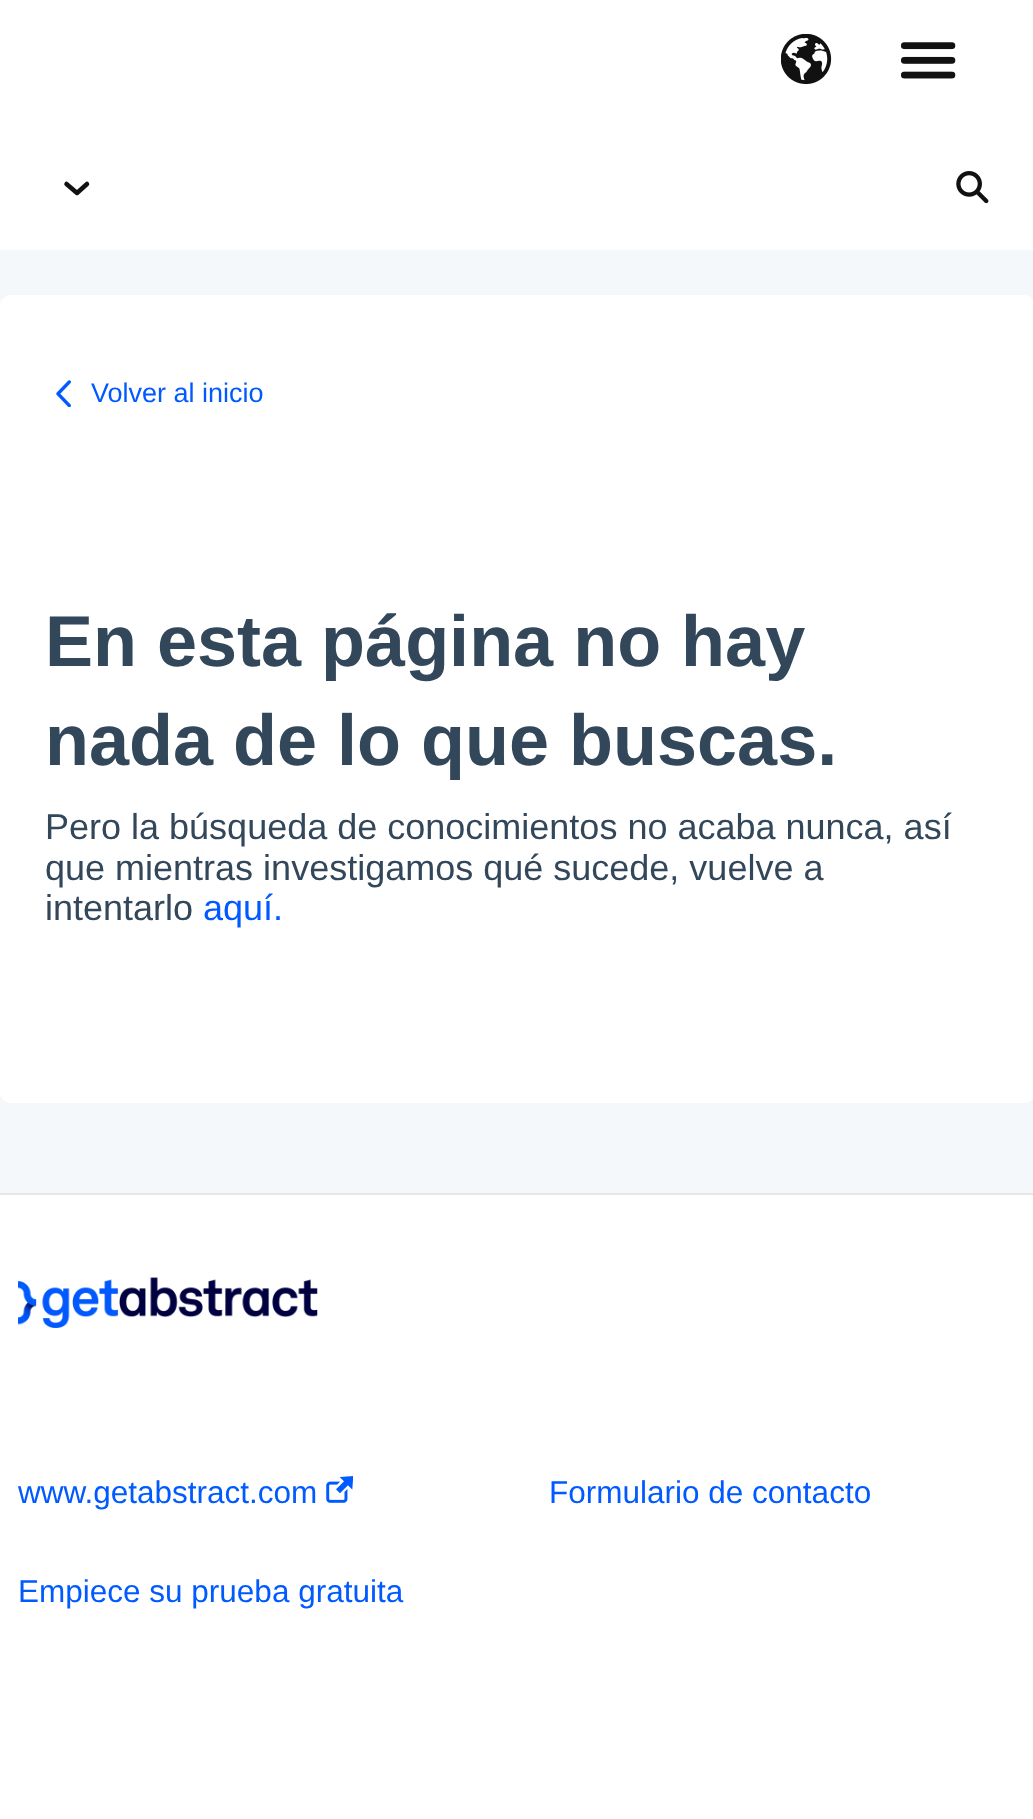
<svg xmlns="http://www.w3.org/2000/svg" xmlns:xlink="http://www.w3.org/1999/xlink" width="1033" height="1819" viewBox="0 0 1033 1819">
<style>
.cls-1{font:27px Liberation Sans;fill:#005aff}
.cls-2{font:bold 72px Liberation Sans;fill:#33475b}
.cls-3{font:36px Liberation Sans;fill:#33475b}
.cls-4{font:36px Liberation Sans;fill:#005aff}
.cls-5{font:31.5px Liberation Sans;fill:#005aff}
</style>
<rect width="100%" height="100%" fill="#f5f8fa"/>
<rect fill="#ffffff" x="0" y="0" width="1033" height="250"/>
<path fill="none" stroke="#111111" stroke-width="4.5" stroke-linecap="round" stroke-linejoin="round" d="M87 184L77 193L66.5 184"/>
<image xlink:href="image0.png" x="956" y="171" width="33" height="33"/>
<image xlink:href="image1.png" x="781" y="34" width="51" height="51"/>
<image xlink:href="image2.png" x="901" y="42" width="55" height="37"/>
<rect fill="#ffffff" x="0" y="295" width="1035" height="808" rx="11"/>
<image xlink:href="image3.png" x="56" y="380" width="15" height="27"/>
<rect fill="#ffffff" x="0" y="1195" width="1033" height="624"/>
<rect fill="#e6e6e6" x="0" y="1193" width="1033" height="2"/>
<image xlink:href="image4.png" x="18" y="1277" width="300" height="51"/>
<image xlink:href="image5.png" x="326" y="1476" width="27" height="27"/>
<text class="cls-1" x="91" y="402">Volver al inicio</text>
<text class="cls-2"><tspan x="45" y="666">En esta página no hay</tspan><tspan x="45" y="765">nada de lo que buscas.</tspan></text>
<text class="cls-3"><tspan x="45" y="839">Pero la búsqueda de conocimientos no acaba nunca, así</tspan><tspan x="45" y="880">que mientras investigamos qué sucede, vuelve a</tspan><tspan x="45" y="920">intentarlo</tspan></text>
<text class="cls-4" x="203" y="920">aquí.</text>
<text class="cls-5" x="18" y="1503">www.getabstract.com</text>
<text class="cls-5" x="549" y="1503">Formulario de contacto</text>
<text class="cls-5" x="18" y="1602">Empiece su prueba gratuita</text>
</svg>
